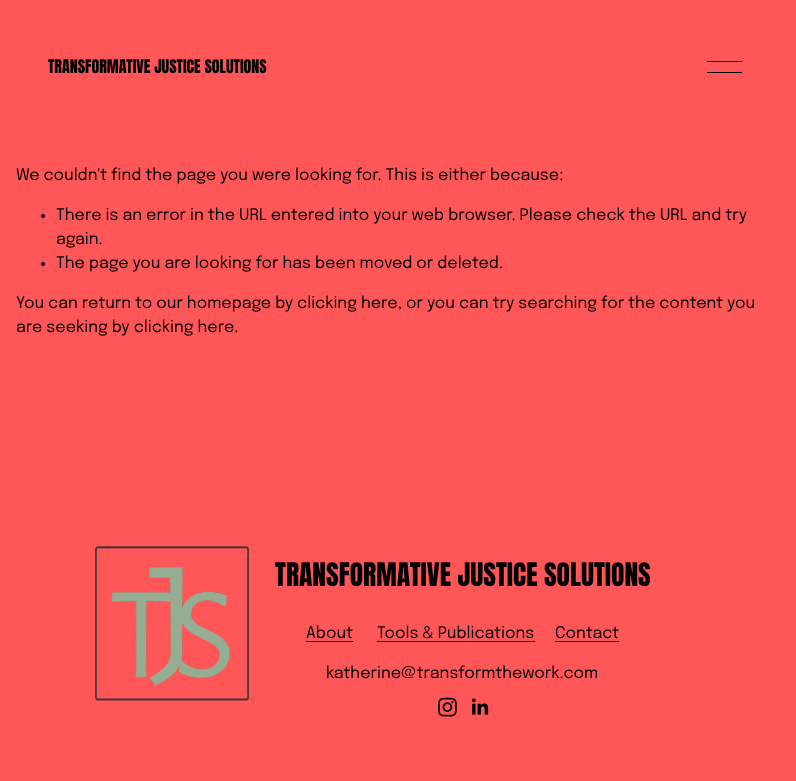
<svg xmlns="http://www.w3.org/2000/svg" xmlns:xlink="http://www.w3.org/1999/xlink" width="796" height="781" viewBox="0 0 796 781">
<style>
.cls-1{font:16px Anton;fill:#000000}
.cls-2{font:16px Epilogue;fill:#000000}
.cls-3{font:27.5px Anton;fill:#000000}
</style>
<rect width="100%" height="100%" fill="#ff5757"/>
<rect fill="#000000" x="707" y="61" width="35" height="1"/>
<rect fill="#000000" x="707" y="72" width="35" height="1"/>
<circle fill="#000000" cx="43" cy="216" r="2"/>
<circle fill="#000000" cx="43" cy="264" r="2"/>
<image xlink:href="image0.png" x="95" y="546" width="155" height="155"/>
<rect fill="#000000" x="306" y="641" width="47" height="1"/>
<rect fill="#000000" x="377" y="641" width="158" height="1"/>
<rect fill="#000000" x="555" y="641" width="64" height="1"/>
<image xlink:href="image1.png" x="438" y="697" width="19" height="20"/>
<image xlink:href="image2.png" x="471" y="698" width="18" height="17"/>
<text class="cls-1" x="48" y="73">TRANSFORMATIVE JUSTICE SOLUTIONS</text>
<text class="cls-2" x="16" y="180">We couldn't find the page you were looking for. This is either because:</text>
<text class="cls-2"><tspan x="56" y="220">There is an error in the URL entered into your web browser. Please check the URL and try</tspan><tspan x="56" y="244">again.</tspan><tspan x="56" y="268">The page you are looking for has been moved or deleted.</tspan></text>
<text class="cls-2"><tspan x="16" y="308">You can return to our homepage by clicking here, or you can try searching for the content you</tspan><tspan x="16" y="332">are seeking by clicking here.</tspan></text>
<text class="cls-3" x="275" y="586">TRANSFORMATIVE JUSTICE SOLUTIONS</text>
<text class="cls-2" x="306" y="638">About</text>
<text class="cls-2" x="377" y="638">Tools &amp; Publications</text>
<text class="cls-2" x="555" y="638">Contact</text>
<text class="cls-2" x="326" y="678">katherine@transformthework.com</text>
</svg>
